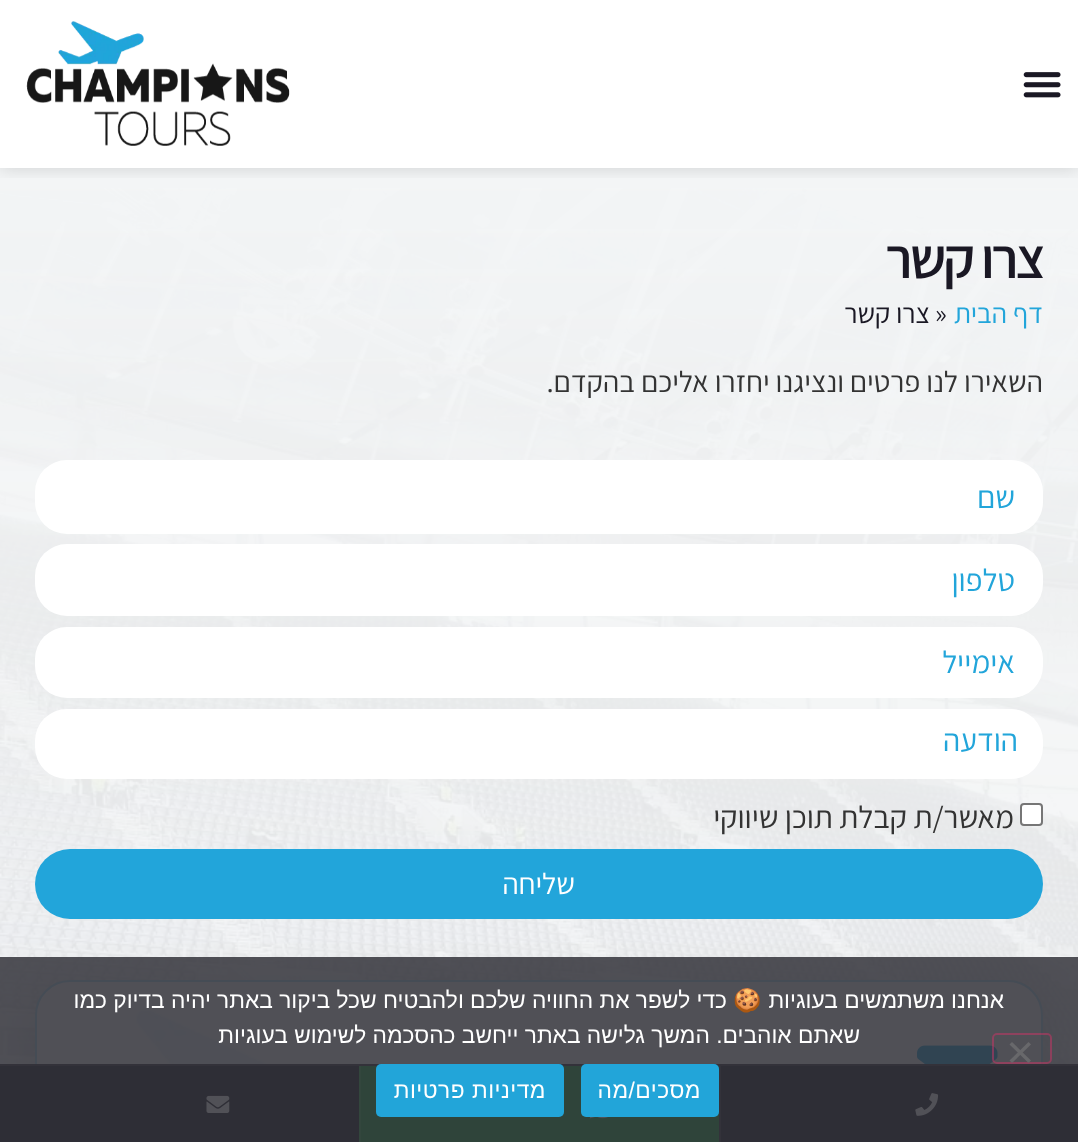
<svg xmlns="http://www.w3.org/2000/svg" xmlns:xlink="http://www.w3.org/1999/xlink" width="1078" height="1142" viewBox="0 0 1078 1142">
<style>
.cls-1{font:600 56px Assistant;letter-spacing:-2.75px;direction:rtl;fill:#1a1824}
.cls-2{font:28px Assistant;direction:rtl;fill:#22a5da}
.cls-3{font:28px Assistant;fill:#1a1824}
.cls-4{font:28px Assistant;direction:rtl;fill:#1a1824}
.cls-5{font:29.75px Assistant;direction:rtl;fill:#333333}
.cls-6{font:31.5px Assistant;direction:rtl;fill:#22a5da}
.cls-7{font:31.5px Assistant;direction:rtl;fill:#333333}
.cls-8{font:29.75px Assistant;direction:rtl;fill:#ffffff}
.cls-9{font:22.75px Liberation Sans;direction:rtl;fill:#ffffff}
.cls-10{font:22.75px Noto Color Emoji;direction:rtl;fill:#ffffff}
.cls-11{font:22.75px Liberation Sans;letter-spacing:0.5px;direction:rtl;fill:#ffffff}
</style>
<defs>
<clipPath id="clip1"><rect x="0" y="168" width="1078" height="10"/></clipPath>
</defs>
<rect width="100%" height="100%" fill="#ffffff"/>
<image xlink:href="image2.png" x="0" y="168" width="1078" height="896"/>
<g clip-path="url(#clip1)">
<rect fill="#000000" fill-opacity="0.15" filter="blur(9px)" x="0" y="0" width="1078" height="168"/>
</g>
<image xlink:href="image0.png" x="1023" y="72" width="38" height="26"/>
<image xlink:href="image1.png" x="26" y="21" width="264" height="125"/>
<rect fill="#ffffff" x="35" y="460" width="1008" height="74" rx="32"/>
<rect fill="#ffffff" x="35" y="544" width="1008" height="72" rx="32"/>
<rect fill="#ffffff" x="35" y="627" width="1008" height="71" rx="32"/>
<rect fill="#ffffff" x="35" y="709" width="1008" height="70" rx="32"/>
<rect fill="#ffffff" stroke="#767676" stroke-width="2" x="1021" y="804" width="21" height="21" rx="3"/>
<rect fill="#000000" fill-opacity="0.1" filter="blur(24.5px)" x="30" y="991" width="1008" height="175" rx="35"/>
<rect fill="#22a5da" x="35" y="849" width="1008" height="70" rx="35"/>
<rect fill="#f6f6f6" x="35" y="980" width="1008" height="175" rx="35"/>
<rect fill="none" stroke="#22a5da" stroke-opacity="0.33" stroke-width="2" x="36" y="981" width="1006" height="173" rx="34"/>
<image xlink:href="image3.png" x="917" y="1045" width="81" height="19"/>
<image xlink:href="image4.png" x="136" y="1009" width="130" height="55"/>
<rect fill="#1a1824" x="0" y="1066" width="1078" height="76"/>
<rect fill="#35343e" x="0" y="1064" width="1078" height="2"/>
<rect fill="#35343e" x="719" y="1066" width="2" height="76"/>
<image xlink:href="image5.png" x="915" y="1093" width="24" height="23"/>
<rect fill="#20aa3c" x="361" y="1066" width="358" height="76"/>
<rect fill="#3bb453" x="359" y="1066" width="2" height="76"/>
<image xlink:href="image6.png" x="589" y="1117" width="19" height="2"/>
<image xlink:href="image7.png" x="206" y="1095" width="24" height="18"/>
<rect fill="#32323a" fill-opacity="0.85" x="0" y="957" width="1078" height="185"/>
<rect fill="none" stroke="#cc3366" stroke-opacity="0.5" stroke-width="2" x="993" y="1034" width="58" height="29" rx="4"/>
<path fill="#68686b" d="M1028.5 1042L1031 1044.5L1012 1063L1009.5 1060.5Z"/>
<path fill="#68686b" d="M1009.5 1044.5L1012 1042L1031 1060.5L1028.5 1063Z"/>
<rect fill="#22a5d9" x="581" y="1064" width="138" height="53" rx="5"/>
<rect fill="#22a5d9" x="376" y="1064" width="188" height="53" rx="5"/>
<text class="cls-1" x="1043" y="278">צרו קשר</text>
<text class="cls-2" x="1043" y="323">דף הבית</text>
<text class="cls-3" x="935" y="323">»</text>
<text class="cls-4" x="930" y="323">צרו קשר</text>
<text class="cls-5" x="1043" y="392">השאירו לנו פרטים ונציגנו יחזרו אליכם בהקדם.</text>
<text class="cls-6" x="1015" y="508">שם</text>
<text class="cls-6" x="1015" y="591">טלפון</text>
<text class="cls-6" x="1015" y="673">אימייל</text>
<text class="cls-6" x="1018" y="751">הודעה</text>
<text class="cls-7" x="1014" y="828">מאשר/ת קבלת תוכן שיווקי</text>
<text class="cls-8" x="575" y="894">שליחה</text>
<text class="cls-9" x="1004" y="1008">אנחנו משתמשים בעוגיות</text>
<text class="cls-10" x="762" y="1008">🍪</text>
<text class="cls-9" x="727" y="1008">כדי לשפר את החוויה שלכם ולהבטיח שכל ביקור באתר יהיה בדיוק כמו</text>
<text class="cls-9" x="860" y="1043">שאתם אוהבים. המשך גלישה באתר ייחשב כהסכמה לשימוש בעוגיות</text>
<text class="cls-11" x="701" y="1098">מסכים/מה</text>
<text class="cls-11" x="546" y="1098">מדיניות פרטיות</text>
</svg>
